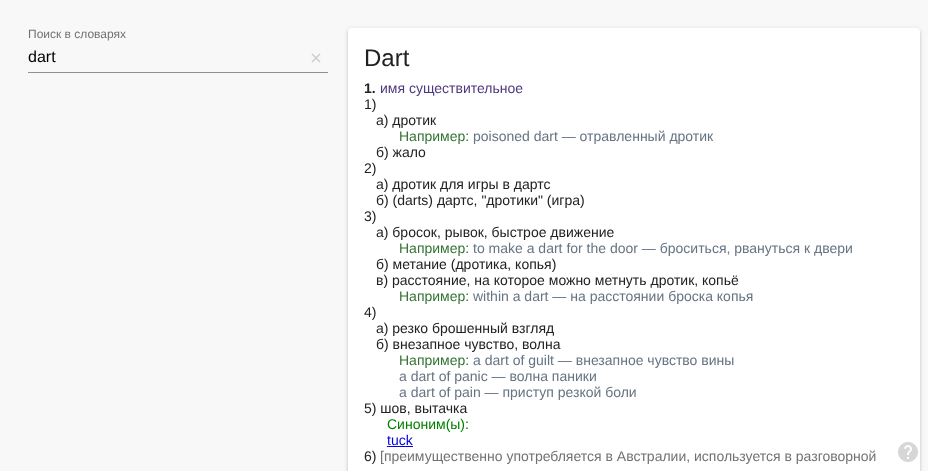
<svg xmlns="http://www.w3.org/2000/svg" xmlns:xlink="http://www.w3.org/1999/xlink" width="928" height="471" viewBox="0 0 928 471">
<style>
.cls-1{font:12px Liberation Sans;fill:#727272}
.cls-2{font:16px Liberation Sans;fill:#000000}
.cls-3{font:24px Liberation Sans;fill:#212121}
.cls-4{font:bold 14px Liberation Sans;fill:#212121}
.cls-5{font:14px Liberation Sans;fill:#4e387e}
.cls-6{font:14px Liberation Sans;fill:#212121}
.cls-7{font:14px Liberation Sans;fill:#347235}
.cls-8{font:14px Liberation Sans;fill:#657383}
.cls-9{font:14px Liberation Sans;fill:#008000}
.cls-10{font:14px Liberation Sans;fill:#0000ee}
.cls-11{font:14px Liberation Sans;fill:#727272}
</style>
<rect width="100%" height="100%" fill="#f8f8f8"/>
<image xlink:href="image0.png" x="311" y="53" width="10" height="10"/>
<rect fill="#909090" x="28" y="72" width="300" height="1"/>
<rect fill="#000000" fill-opacity="0.12" filter="blur(2.5px)" x="348" y="29" width="572" height="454" rx="4"/>
<rect fill="#000000" fill-opacity="0.14" filter="blur(1px)" x="348" y="30" width="572" height="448" rx="4"/>
<rect fill="#ffffff" x="348" y="28" width="572" height="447" rx="4"/>
<rect fill="#0000ee" x="387" y="446" width="26" height="1"/>
<image xlink:href="image1.png" x="898" y="442" width="20" height="20"/>
<text class="cls-1" x="28" y="38">Поиск в словарях</text>
<text class="cls-2" x="28" y="62">dart</text>
<text class="cls-3" x="364" y="66">Dart</text>
<text class="cls-4" x="364" y="93">1.</text>
<text class="cls-5" x="380" y="93">имя существительное</text>
<text class="cls-6" x="364" y="109">1)</text>
<text class="cls-6" x="376" y="125">а) дротик</text>
<text class="cls-7" x="399" y="141">Например:</text>
<text class="cls-8" x="473" y="141">poisoned dart — отравленный дротик</text>
<text class="cls-6" x="376" y="157">б) жало</text>
<text class="cls-6" x="364" y="173">2)</text>
<text class="cls-6"><tspan x="376" y="189">а) дротик для игры в дартс</tspan><tspan x="376" y="205">б) (darts) дартс, "дротики" (игра)</tspan></text>
<text class="cls-6" x="364" y="221">3)</text>
<text class="cls-6" x="376" y="237">а) бросок, рывок, быстрое движение</text>
<text class="cls-7" x="399" y="253">Например:</text>
<text class="cls-8" x="473" y="253">to make a dart for the door — броситься, рвануться к двери</text>
<text class="cls-6"><tspan x="376" y="269">б) метание (дротика, копья)</tspan><tspan x="376" y="285">в) расстояние, на которое можно метнуть дротик, копьё</tspan></text>
<text class="cls-7" x="399" y="301">Например:</text>
<text class="cls-8" x="473" y="301">within a dart — на расстоянии броска копья</text>
<text class="cls-6" x="364" y="317">4)</text>
<text class="cls-6"><tspan x="376" y="333">а) резко брошенный взгляд</tspan><tspan x="376" y="349">б) внезапное чувство, волна</tspan></text>
<text class="cls-7" x="399" y="365">Например:</text>
<text class="cls-8" x="473" y="365">a dart of guilt — внезапное чувство вины</text>
<text class="cls-8"><tspan x="399" y="381">a dart of panic — волна паники</tspan><tspan x="399" y="397">a dart of pain — приступ резкой боли</tspan></text>
<text class="cls-6" x="364" y="413">5) шов, вытачка</text>
<text class="cls-9" x="387" y="429">Синоним(ы):</text>
<text class="cls-10" x="387" y="445">tuck</text>
<text class="cls-6" x="364" y="461">6)</text>
<text class="cls-11" x="380" y="461">[преимущественно употребляется в Австралии, используется в разговорной</text>
</svg>
